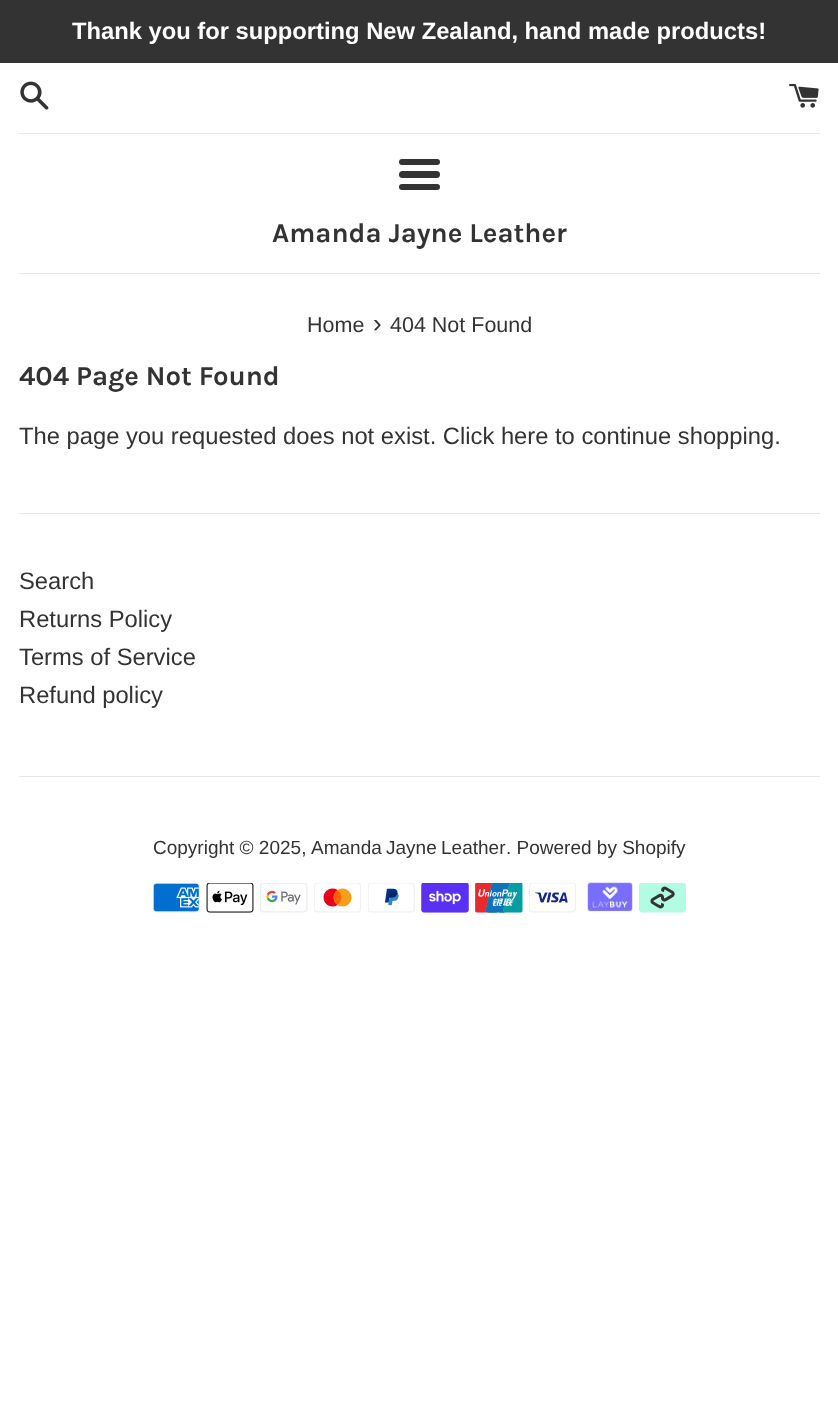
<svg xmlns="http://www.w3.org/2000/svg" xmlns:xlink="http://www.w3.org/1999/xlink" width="838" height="1418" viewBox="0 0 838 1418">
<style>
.cls-1{font:bold 23.75px Liberation Sans;fill:#ffffff}
.cls-2{font:bold 27.5px Karla;fill:#333333}
.cls-3{font:21.5px Liberation Sans;fill:#333333}
.cls-4{font:26px Liberation Sans;fill:#333333}
.cls-5{font:23.75px Liberation Sans;fill:#333333}
.cls-6{font:19px Liberation Sans;fill:#333333}
</style>
<rect width="100%" height="100%" fill="#ffffff"/>
<rect fill="#333333" x="0" y="0" width="838" height="63"/>
<image xlink:href="image0.png" x="20" y="81" width="29" height="29"/>
<image xlink:href="image1.png" x="789" y="83" width="30" height="25"/>
<rect fill="#e8e8e8" x="19" y="133" width="801" height="1"/>
<rect fill="#333333" x="399" y="159" width="41" height="6" rx="3"/>
<rect fill="#333333" x="399" y="171" width="41" height="7" rx="3.5"/>
<rect fill="#333333" x="399" y="184" width="41" height="6" rx="3"/>
<rect fill="#e8e8e8" x="19" y="273" width="801" height="1"/>
<rect fill="#e8e8e8" x="19" y="513" width="801" height="1"/>
<rect fill="#e8e8e8" x="19" y="776" width="801" height="1"/>
<image xlink:href="image2.png" x="153" y="883" width="47" height="30"/>
<image xlink:href="image3.png" x="206" y="883" width="48" height="30"/>
<image xlink:href="image4.png" x="260" y="883" width="48" height="30"/>
<image xlink:href="image5.png" x="314" y="883" width="47" height="30"/>
<image xlink:href="image6.png" x="368" y="883" width="47" height="30"/>
<image xlink:href="image7.png" x="421" y="883" width="48" height="30"/>
<image xlink:href="image8.png" x="475" y="883" width="48" height="30"/>
<image xlink:href="image9.png" x="529" y="883" width="47" height="30"/>
<image xlink:href="image10.png" x="587" y="882" width="46" height="30"/>
<image xlink:href="image11.png" x="639" y="883" width="47" height="30"/>
<text class="cls-1" x="72" y="39">Thank you for supporting New Zealand, hand made products!</text>
<text class="cls-2" x="272" y="242">Amanda Jayne Leather</text>
<text class="cls-3" x="307" y="332">Home</text>
<text class="cls-4" x="373" y="332">›</text>
<text class="cls-3" x="390" y="332">404 Not Found</text>
<text class="cls-2" x="19" y="385">404 Page Not Found</text>
<text class="cls-5" x="19" y="444">The page you requested does not exist. Click here to continue shopping.</text>
<text class="cls-5"><tspan x="19" y="589">Search</tspan><tspan x="19" y="627">Returns Policy</tspan><tspan x="19" y="665">Terms of Service</tspan><tspan x="19" y="703">Refund policy</tspan></text>
<text class="cls-6" x="153" y="854">Copyright © 2025,</text>
<text class="cls-6" x="311" y="854" word-spacing="-1">Amanda Jayne Leather</text>
<text class="cls-6" x="506" y="854">. Powered by Shopify</text>
</svg>
